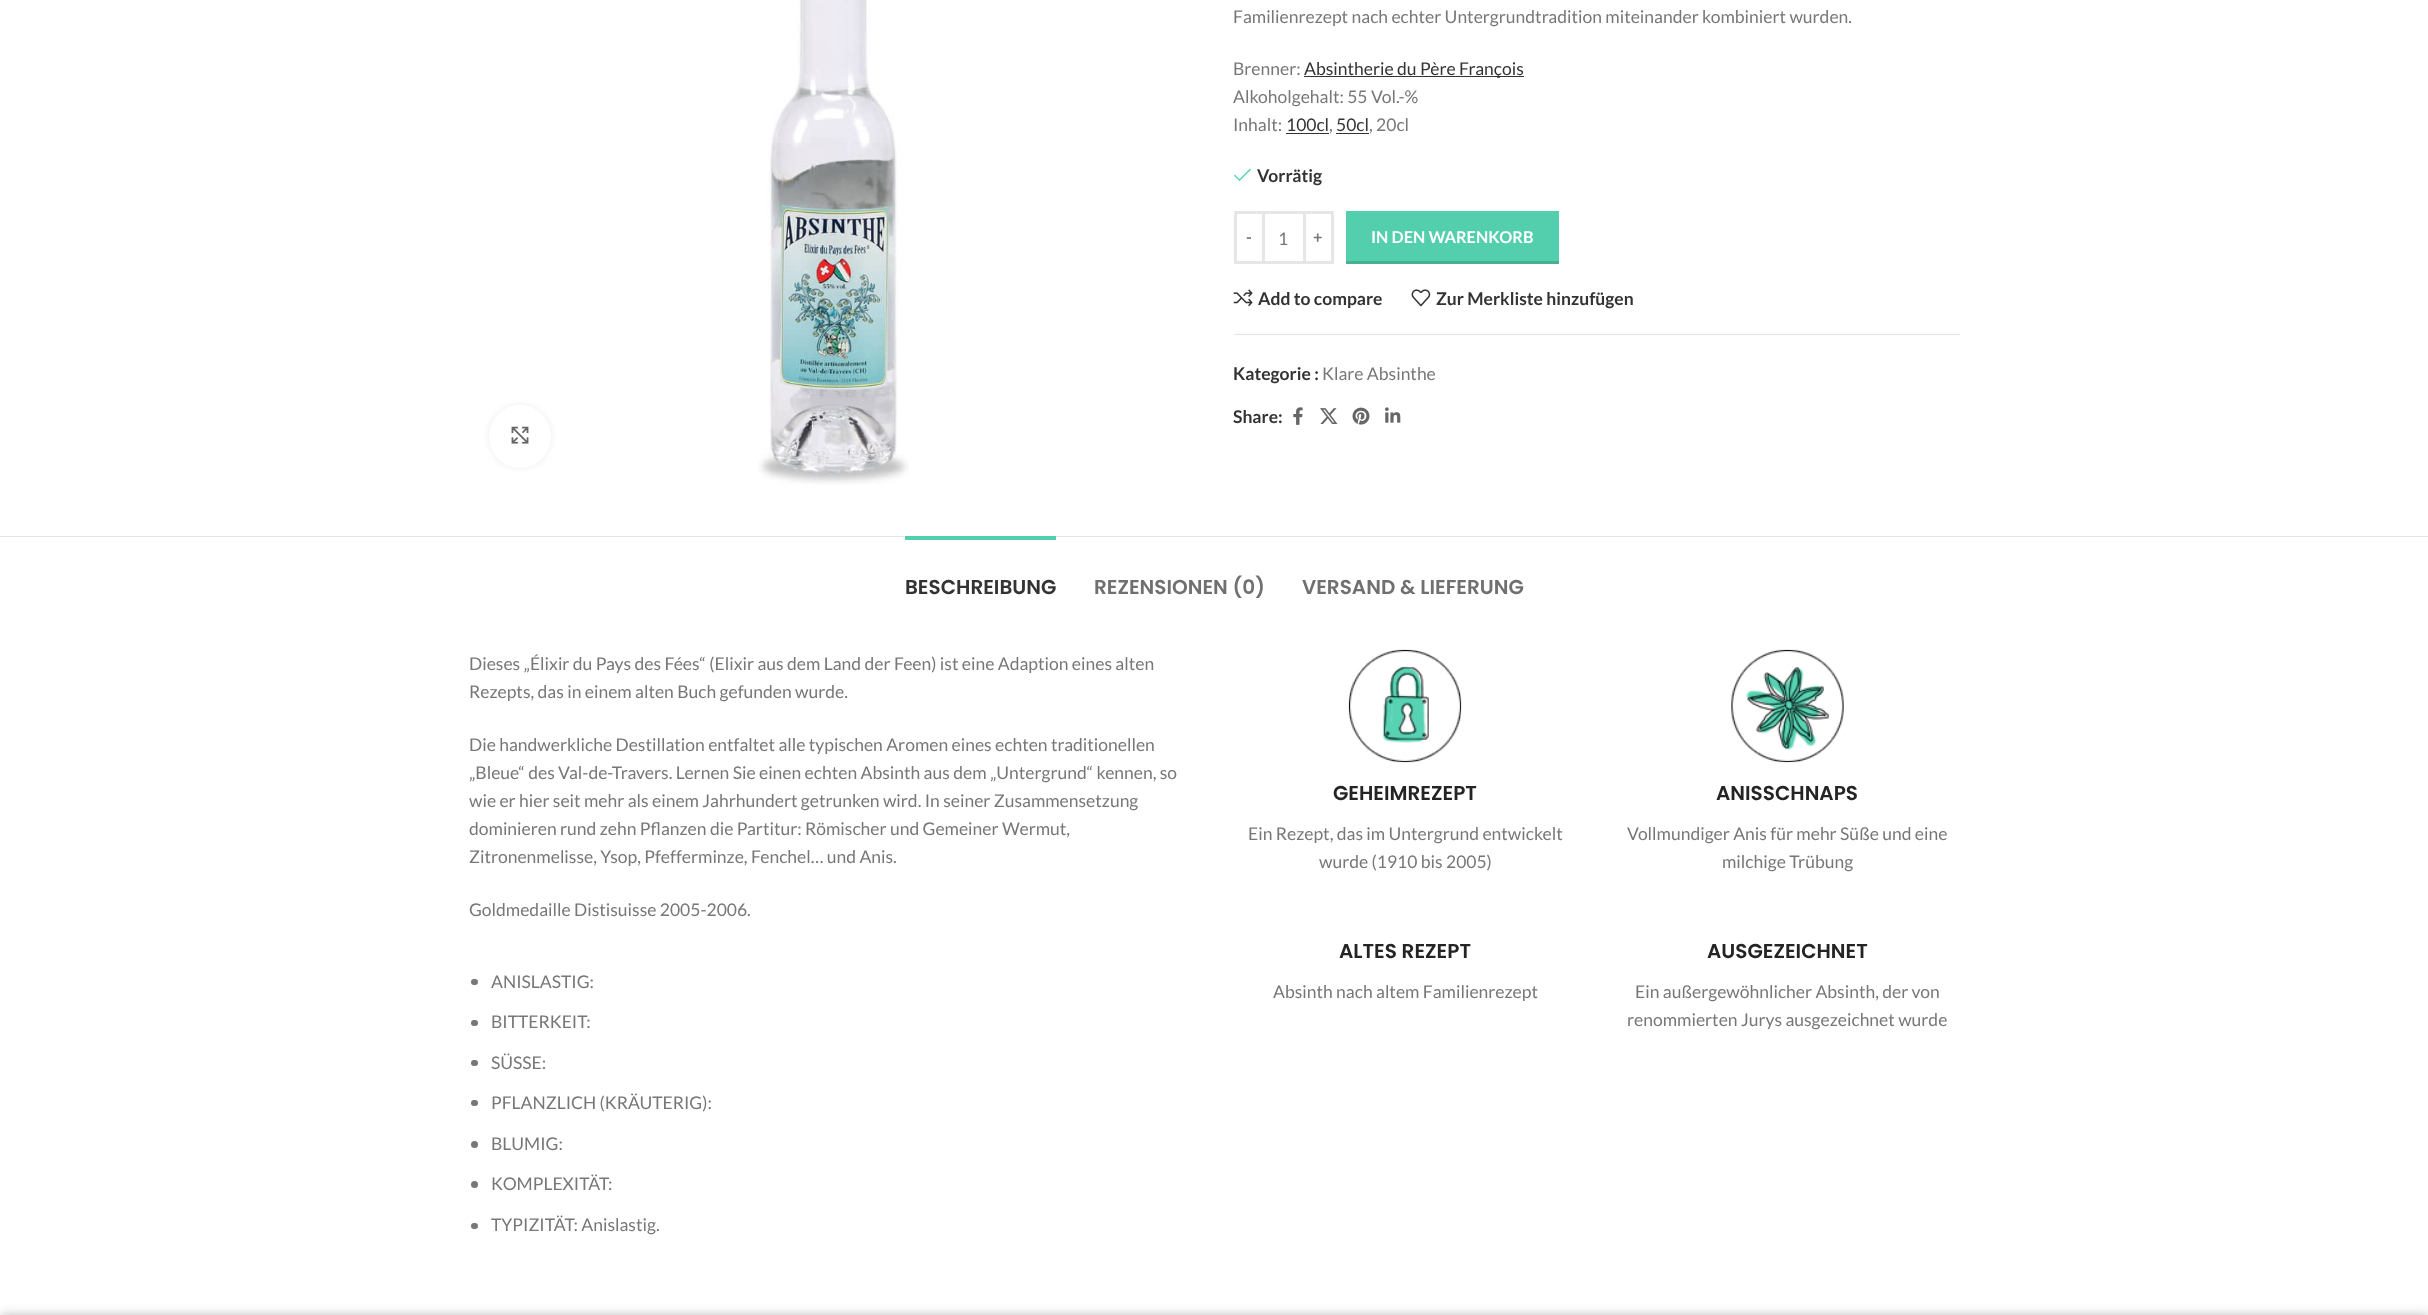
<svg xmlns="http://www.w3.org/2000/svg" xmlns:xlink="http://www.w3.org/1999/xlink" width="2428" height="1315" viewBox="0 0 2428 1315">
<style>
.cls-1{font:17.5px Lato;fill:#777777}
.cls-2{font:17.5px Lato;fill:#333333}
.cls-3{font:bold 17.5px Lato;fill:#333333}
.cls-4{font:bold 16.25px Lato;fill:#777777}
.cls-5{font:bold 16.25px Lato;fill:#ffffff}
.cls-6{font:600 20px Poppins;fill:#333333}
.cls-7{font:600 20px Poppins;fill:#707070}
.cls-8{font:600 20px Poppins;fill:#242424}
</style>
<rect width="100%" height="100%" fill="#ffffff"/>
<rect fill="#000000" fill-opacity="0.08" filter="blur(3px)" x="489" y="405" width="62" height="63" rx="31"/>
<rect fill="#ffffff" x="489" y="405" width="62" height="63" rx="31"/>
<image xlink:href="image0.png" x="511" y="426" width="18" height="18"/>
<image xlink:href="image1.png" x="758" y="0" width="151" height="485"/>
<rect fill="#333333" x="1304" y="76" width="220" height="1"/>
<rect fill="#333333" x="1286" y="133" width="43" height="1"/>
<rect fill="#333333" x="1336" y="133" width="33" height="1"/>
<image xlink:href="image2.png" x="1234" y="168" width="17" height="13"/>
<rect fill="none" stroke="#e6e6e6" stroke-width="3" x="1235.5" y="212.5" width="28" height="50"/>
<rect fill="#e6e6e6" x="1265" y="211" width="38" height="3"/>
<rect fill="#e6e6e6" x="1265" y="261" width="38" height="3"/>
<rect fill="none" stroke="#e6e6e6" stroke-width="3" x="1304.5" y="212.5" width="28" height="50"/>
<rect fill="#53cfae" x="1346" y="211" width="213" height="50"/>
<rect fill="#47b094" x="1346" y="261" width="213" height="3"/>
<image xlink:href="image3.png" x="1233" y="289" width="20" height="18"/>
<image xlink:href="image4.png" x="1411" y="289" width="20" height="18"/>
<rect fill="#e4e4e4" x="1234" y="334" width="726" height="1"/>
<image xlink:href="image5.png" x="1293" y="407" width="10" height="18"/>
<image xlink:href="image6.png" x="1320" y="408" width="18" height="16"/>
<image xlink:href="image7.png" x="1352" y="407" width="18" height="18"/>
<image xlink:href="image8.png" x="1385" y="407" width="16" height="16"/>
<rect fill="#e4e4e4" x="0" y="536" width="2428" height="1"/>
<rect fill="#53cfae" x="905" y="536" width="151" height="4"/>
<rect fill="#777777" x="471" y="979" width="7" height="6" rx="3"/>
<rect fill="#777777" x="471" y="1020" width="7" height="6" rx="3"/>
<rect fill="#777777" x="471" y="1060" width="7" height="6" rx="3"/>
<rect fill="#777777" x="471" y="1100" width="7" height="6" rx="3"/>
<circle fill="#777777" cx="474.5" cy="1144.5" r="3.5"/>
<circle fill="#777777" cx="474.5" cy="1184.5" r="3.5"/>
<rect fill="#777777" x="471" y="1223" width="7" height="6" rx="3"/>
<image xlink:href="image9.png" x="1348" y="649" width="114" height="114"/>
<image xlink:href="image10.png" x="1731" y="649" width="113" height="114"/>
<rect fill="#000000" fill-opacity="0.12" filter="blur(5.5px)" x="0" y="1315" width="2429" height="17"/>
<rect fill="#000000" fill-opacity="0.14" filter="blur(5.5px)" x="0" y="1315" width="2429" height="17"/>
<text class="cls-1" x="1233" y="23">Familienrezept nach echter Untergrundtradition miteinander kombiniert wurden.</text>
<text class="cls-1" x="1233" y="75">Brenner:</text>
<text class="cls-2" x="1304" y="75">Absintherie du Père François</text>
<text class="cls-1"><tspan x="1233" y="103">Alkoholgehalt: 55 Vol.-%</tspan><tspan x="1233" y="131">Inhalt:</tspan></text>
<text class="cls-2" x="1286" y="131">100cl</text>
<text class="cls-1" x="1329" y="131">,</text>
<text class="cls-2" x="1336" y="131">50cl</text>
<text class="cls-1" x="1369" y="131">, 20cl</text>
<text class="cls-3" x="1257" y="182">Vorrätig</text>
<text class="cls-4" x="1246" y="243">-</text>
<text class="cls-1" x="1278" y="245">1</text>
<text class="cls-4" x="1313" y="243">+</text>
<text class="cls-5" x="1371" y="243">IN DEN WARENKORB</text>
<text class="cls-3" x="1258" y="305">Add to compare</text>
<text class="cls-3" x="1436" y="305">Zur Merkliste hinzufügen</text>
<text class="cls-3" x="1233" y="380">Kategorie :</text>
<text class="cls-1" x="1322" y="380">Klare Absinthe</text>
<text class="cls-3" x="1233" y="423">Share:</text>
<text class="cls-6" x="905" y="594">BESCHREIBUNG</text>
<text class="cls-7" x="1094" y="594">REZENSIONEN (0)</text>
<text class="cls-7" x="1302" y="594">VERSAND &amp; LIEFERUNG</text>
<text class="cls-1"><tspan x="469" y="670">Dieses „Élixir du Pays des Fées“ (Elixir aus dem Land der Feen) ist eine Adaption eines alten</tspan><tspan x="469" y="698">Rezepts, das in einem alten Buch gefunden wurde.</tspan></text>
<text class="cls-1"><tspan x="469" y="751">Die handwerkliche Destillation entfaltet alle typischen Aromen eines echten traditionellen</tspan><tspan x="469" y="779">„Bleue“ des Val-de-Travers. Lernen Sie einen echten Absinth aus dem „Untergrund“ kennen, so</tspan><tspan x="469" y="807">wie er hier seit mehr als einem Jahrhundert getrunken wird. In seiner Zusammensetzung</tspan><tspan x="469" y="835">dominieren rund zehn Pflanzen die Partitur: Römischer und Gemeiner Wermut,</tspan><tspan x="469" y="863">Zitronenmelisse, Ysop, Pfefferminze, Fenchel… und Anis.</tspan></text>
<text class="cls-1" x="469" y="916">Goldmedaille Distisuisse 2005-2006.</text>
<text class="cls-1" x="491" y="988">ANISLASTIG:</text>
<text class="cls-1" x="491" y="1028">BITTERKEIT:</text>
<text class="cls-1" x="491" y="1069">SÜSSE:</text>
<text class="cls-1" x="491" y="1109">PFLANZLICH (KRÄUTERIG):</text>
<text class="cls-1" x="491" y="1150">BLUMIG:</text>
<text class="cls-1" x="491" y="1190">KOMPLEXITÄT:</text>
<text class="cls-1" x="491" y="1231">TYPIZITÄT: Anislastig.</text>
<text class="cls-8" x="1333" y="800">GEHEIMREZEPT</text>
<text class="cls-1" x="1248" y="840">Ein Rezept, das im Untergrund entwickelt</text>
<text class="cls-1" x="1319" y="868">wurde (1910 bis 2005)</text>
<text class="cls-8" x="1716" y="800">ANISSCHNAPS</text>
<text class="cls-1" x="1627" y="840">Vollmundiger Anis für mehr Süße und eine</text>
<text class="cls-1" x="1722" y="868">milchige Trübung</text>
<text class="cls-8" x="1339" y="958">ALTES REZEPT</text>
<text class="cls-1" x="1273" y="998">Absinth nach altem Familienrezept</text>
<text class="cls-8" x="1707" y="958">AUSGEZEICHNET</text>
<text class="cls-1" x="1635" y="998">Ein außergewöhnlicher Absinth, der von</text>
<text class="cls-1" x="1627" y="1026">renommierten Jurys ausgezeichnet wurde</text>
</svg>
